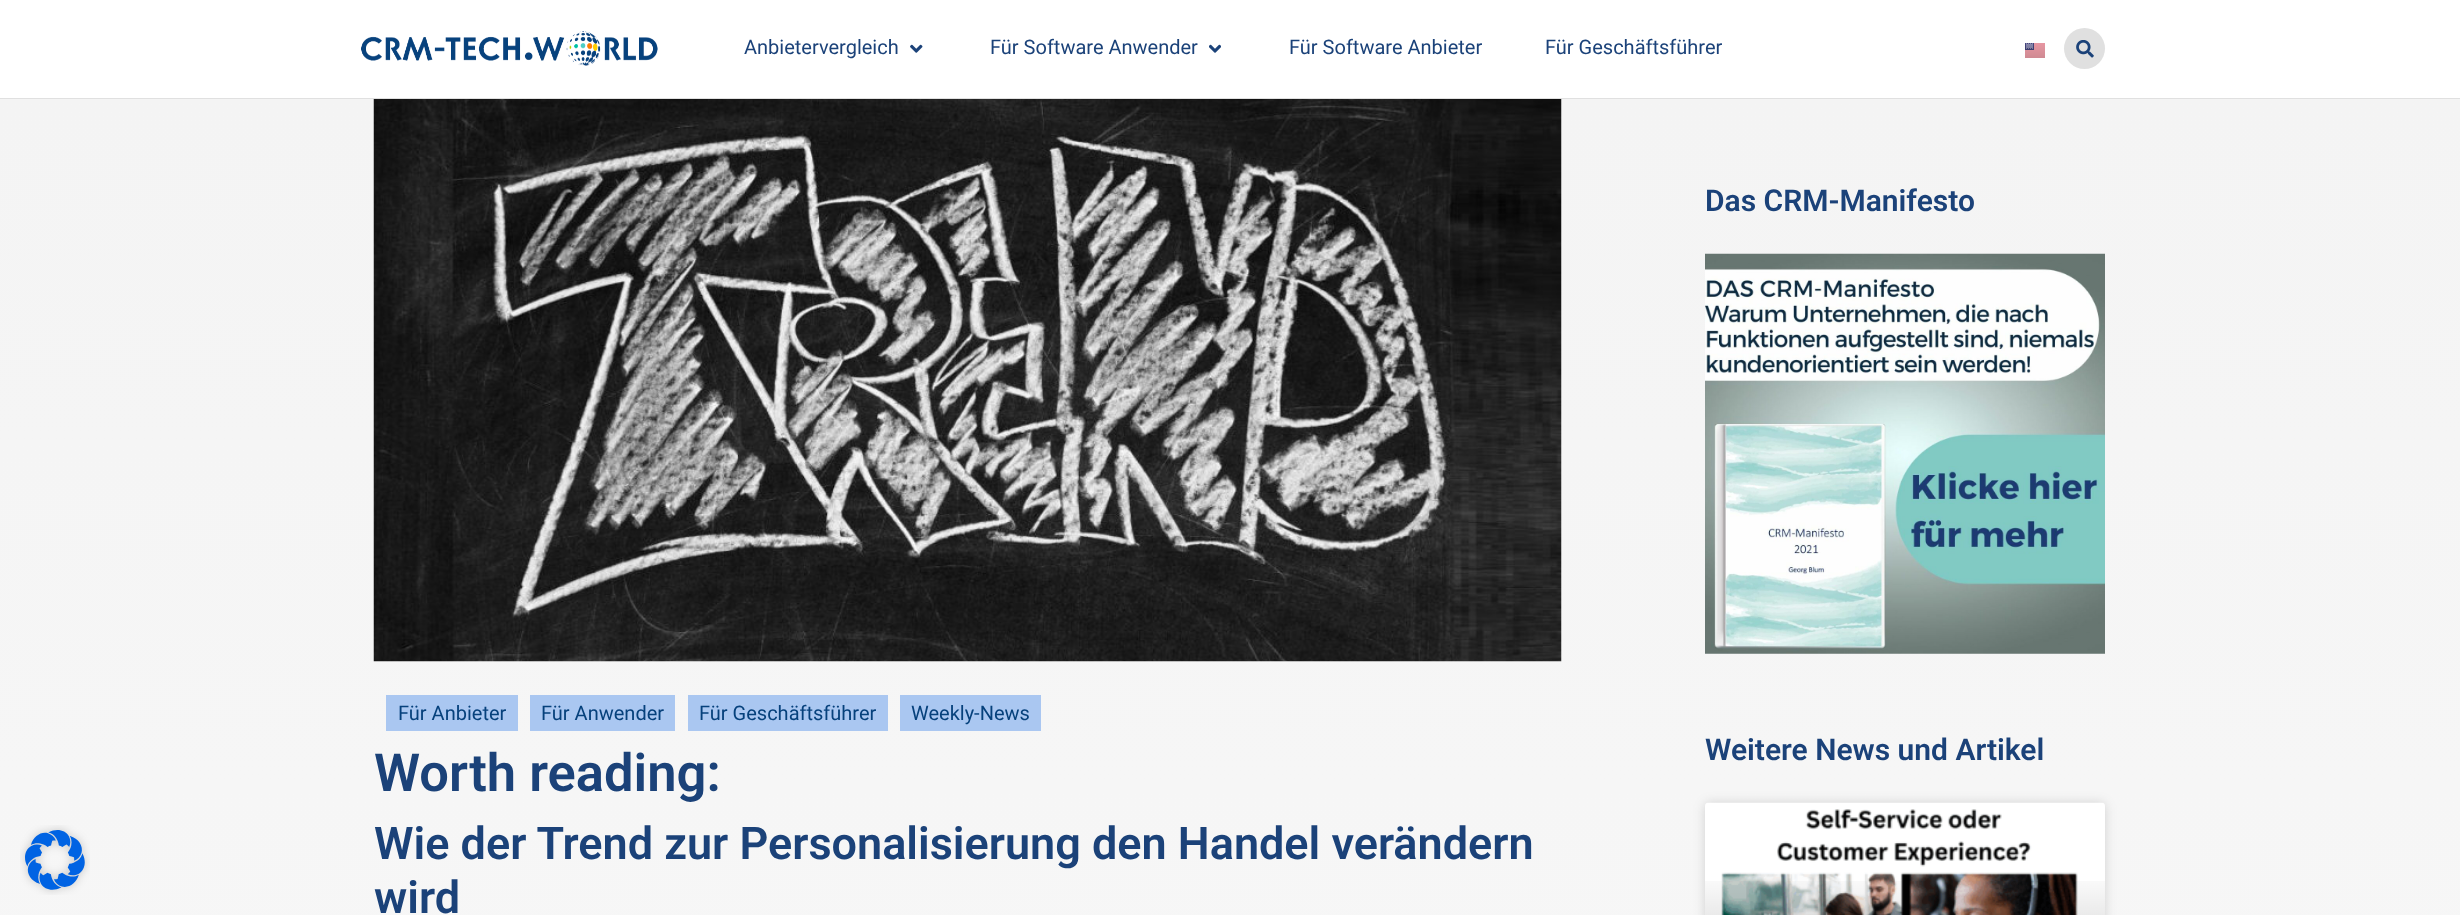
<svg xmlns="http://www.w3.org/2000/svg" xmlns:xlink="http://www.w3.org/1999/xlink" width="2460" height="915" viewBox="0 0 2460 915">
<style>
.cls-1{font:20px Roboto;fill:#1b4279}
.cls-2{font:600 30px Roboto;fill:#1b4279}
.cls-3{font:20px Roboto;fill:#06417c}
.cls-4{font:600 52.5px Roboto;fill:#1b4279}
.cls-5{font:600 45px Roboto;fill:#1b4279}
</style>
<defs>
<linearGradient id="g1" gradientUnits="userSpaceOnUse" x1="1230" y1="99" x2="1230" y2="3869"><stop offset="0" stop-color="#f4f4f4"/><stop offset="1" stop-color="#ffffff"/></linearGradient>
<linearGradient id="g2" gradientUnits="userSpaceOnUse" x1="1905" y1="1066" x2="1905" y2="803"><stop offset="0" stop-color="#000000" stop-opacity="0.35"/><stop offset="0.75" stop-color="#000000" stop-opacity="0"/></linearGradient>
</defs>
<rect width="100%" height="100%" fill="#ffffff"/>
<rect fill="#e0e0e0" x="0" y="98" width="2460" height="1"/>
<image xlink:href="image0.png" x="361" y="31" width="297" height="35"/>
<image xlink:href="image1.png" x="910" y="44" width="13" height="9"/>
<image xlink:href="image2.png" x="1209" y="44" width="12" height="9"/>
<image xlink:href="image3.png" x="2025" y="43" width="20" height="15"/>
<circle fill="#e0e0e0" cx="2084.5" cy="48.5" r="20.5"/>
<image xlink:href="image4.png" x="2076" y="40" width="18" height="18"/>
<rect fill="url(#g1)" x="0" y="99" width="2460" height="816"/>
<image xlink:href="image5.png" x="20" y="825" width="70" height="70"/>
<image xlink:href="image6.png" x="1705" y="253" width="400" height="401"/>
<rect fill="#000000" fill-opacity="0.15" filter="blur(6px)" x="1705" y="803" width="400" height="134" rx="4"/>
<image xlink:href="image7.png" x="1705" y="802" width="400" height="113"/>
<rect fill="url(#g2)" x="1705" y="881" width="400" height="34"/>
<image xlink:href="image8.png" x="373" y="99" width="1189" height="563"/>
<rect fill="#aac7f1" x="386" y="695" width="132" height="36"/>
<rect fill="#aac7f1" x="530" y="695" width="145" height="36"/>
<rect fill="#aac7f1" x="688" y="695" width="200" height="36"/>
<rect fill="#aac7f1" x="900" y="695" width="141" height="36"/>
<text class="cls-1" x="744" y="54">Anbietervergleich</text>
<text class="cls-1" x="990" y="54">Für Software Anwender</text>
<text class="cls-1" x="1289" y="54">Für Software Anbieter</text>
<text class="cls-1" x="1545" y="54">Für Geschäftsführer</text>
<text class="cls-2" x="1705" y="211">Das CRM-Manifesto</text>
<text class="cls-2" x="1705" y="760">Weitere News und Artikel</text>
<text class="cls-3" x="398" y="720">Für Anbieter</text>
<text class="cls-3" x="541" y="720">Für Anwender</text>
<text class="cls-3" x="699" y="720">Für Geschäftsführer</text>
<text class="cls-3" x="911" y="720">Weekly-News</text>
<text class="cls-4" x="374" y="791">Worth reading:</text>
<text class="cls-5"><tspan x="374" y="859">Wie der Trend zur Personalisierung den Handel verändern</tspan><tspan x="374" y="913">wird</tspan></text>
</svg>
